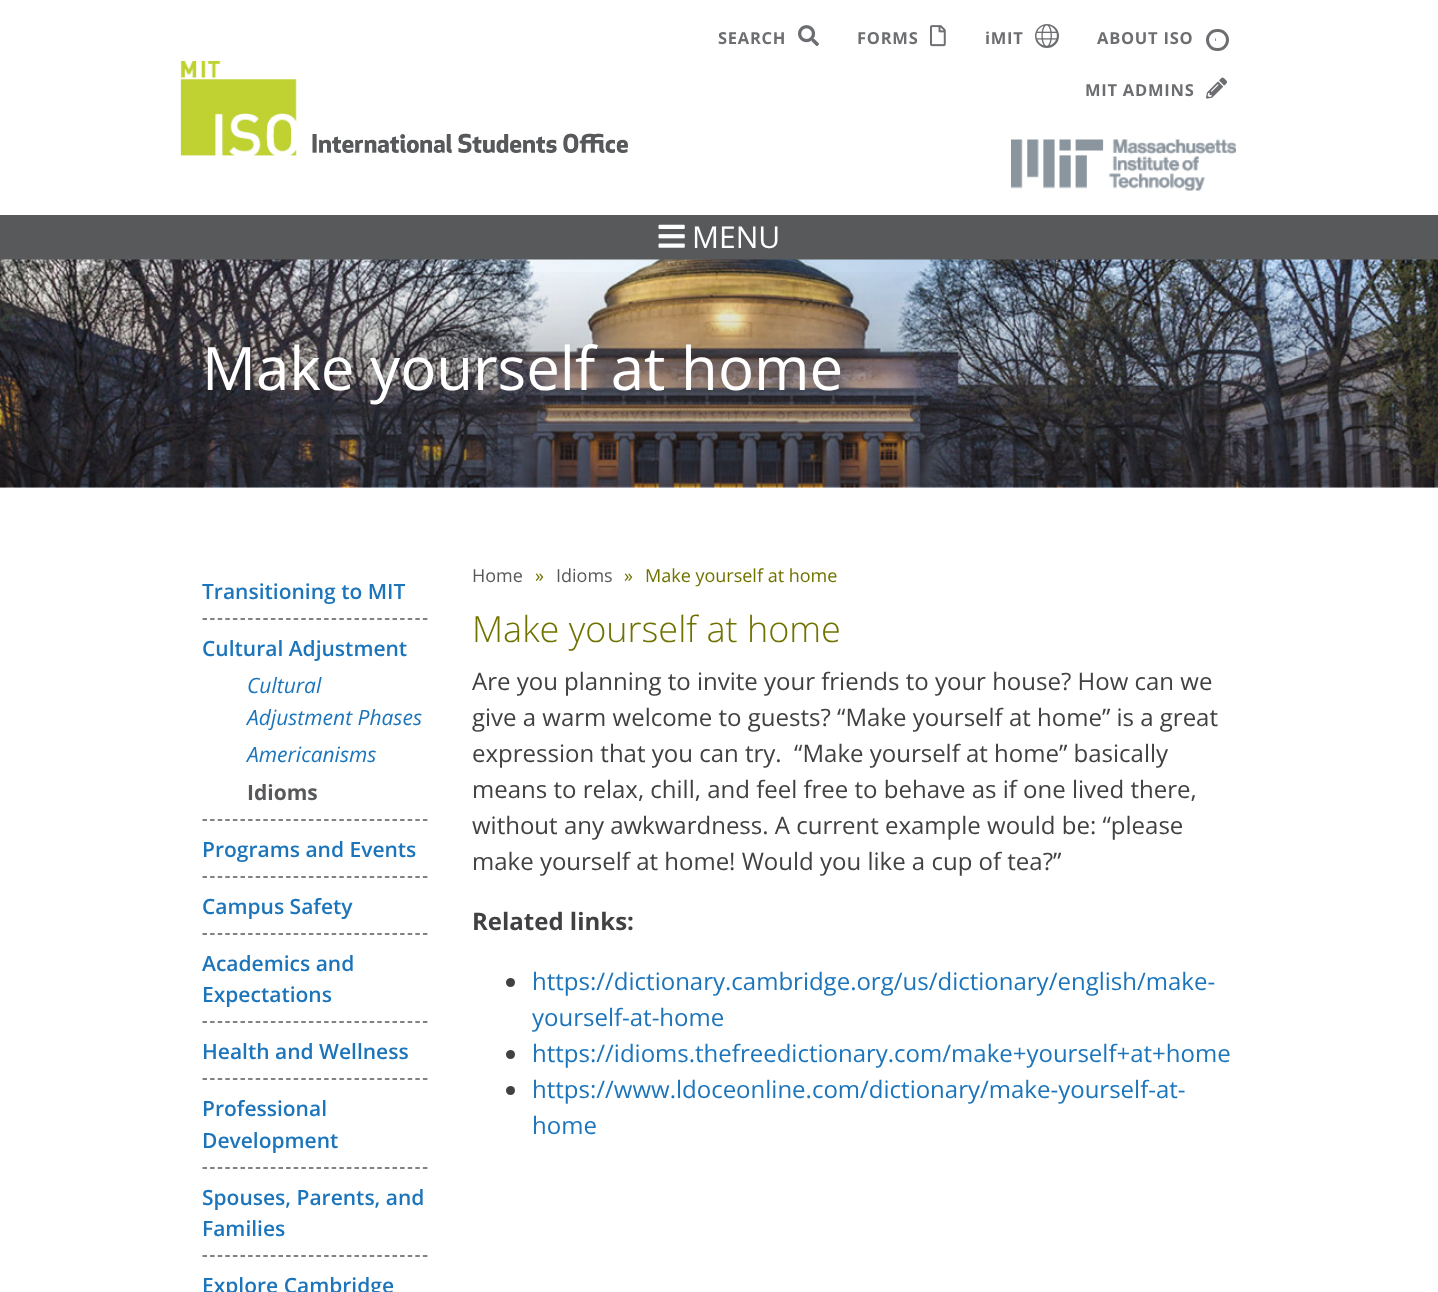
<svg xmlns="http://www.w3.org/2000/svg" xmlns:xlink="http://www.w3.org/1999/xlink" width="1438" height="1292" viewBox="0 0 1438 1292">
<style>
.cls-1{font:bold 16.5px Open Sans;letter-spacing:0.75px;fill:#6d6e71}
.cls-2{font:30px Open Sans;fill:#ffffff}
.cls-3{font:60px Open Sans;fill:#ffffff}
.cls-4{font:600 21px Open Sans;fill:#1c75bb}
.cls-5{font:italic 21px Open Sans;fill:#1c75bb}
.cls-6{font:bold 21px Open Sans;fill:#58595b}
.cls-7{font:18px Open Sans;fill:#58595b}
.cls-8{font:18px Open Sans;fill:#707200}
.cls-9{font:300 36px Open Sans;fill:#707200}
.cls-10{font:24px Open Sans;fill:#414042}
.cls-11{font:bold 24px Open Sans;fill:#414042}
.cls-12{font:24px Open Sans;fill:#1c75bb}
</style>
<rect width="100%" height="100%" fill="#ffffff"/>
<image xlink:href="image0.png" x="180" y="60" width="448" height="96"/>
<image xlink:href="image1.png" x="798" y="25" width="21" height="22"/>
<image xlink:href="image2.png" x="930" y="25" width="16" height="22"/>
<circle fill="#6d6e71" stroke="#6d6e71" stroke-width="2" cx="1047" cy="36" r="11"/>
<image xlink:href="image3.png" x="1036" y="25" width="21" height="21"/>
<rect fill="none" stroke="#6d6e71" stroke-width="3" x="1207.5" y="30.5" width="20" height="19" rx="9.5"/>
<image xlink:href="image4.png" x="1215" y="37" width="2" height="4"/>
<image xlink:href="image5.png" x="1206" y="77" width="21" height="22"/>
<image xlink:href="image6.png" x="1011" y="139" width="225" height="52"/>
<rect fill="#58595b" x="0" y="215" width="1438" height="45"/>
<image xlink:href="image7.png" x="658" y="224" width="27" height="24"/>
<image xlink:href="image8.png" x="0" y="259" width="1438" height="229"/>
<image xlink:href="image9.png" x="0" y="272" width="1438" height="216"/>
<path fill="none" stroke="#58595b" stroke-width="1.5" stroke-dasharray="4.5 3.1" d="M202.5 619H427.5"/>
<path fill="none" stroke="#58595b" stroke-width="1.5" stroke-dasharray="4.5 3.1" d="M202.5 820H427.5"/>
<path fill="none" stroke="#58595b" stroke-width="1.5" stroke-dasharray="4.5 3.1" d="M202.5 877H427.5"/>
<path fill="none" stroke="#58595b" stroke-width="1.5" stroke-dasharray="4.5 3.1" d="M202.5 934H427.5"/>
<path fill="none" stroke="#58595b" stroke-width="1.5" stroke-dasharray="4.5 3.1" d="M202.5 1022H427.5"/>
<path fill="none" stroke="#58595b" stroke-width="1.5" stroke-dasharray="4.5 3.1" d="M202.5 1079H427.5"/>
<path fill="none" stroke="#58595b" stroke-width="1.5" stroke-dasharray="4.5 3.1" d="M202.5 1168H427.5"/>
<path fill="none" stroke="#58595b" stroke-width="1.5" stroke-dasharray="4.5 3.1" d="M202.5 1256H427.5"/>
<circle fill="#414042" cx="510.5" cy="982.5" r="4.5"/>
<circle fill="#414042" cx="510.5" cy="1054.5" r="4.5"/>
<circle fill="#414042" cx="510.5" cy="1090.5" r="4.5"/>
<text class="cls-1" x="718" y="44">SEARCH</text>
<text class="cls-1" x="857" y="44">FORMS</text>
<text class="cls-1" x="985" y="44">iMIT</text>
<text class="cls-1" x="1097" y="44">ABOUT ISO</text>
<text class="cls-1" x="1085" y="96">MIT ADMINS</text>
<text class="cls-2" x="692" y="248">MENU</text>
<text class="cls-3" x="202" y="390">Make yourself at home</text>
<text class="cls-4" x="202" y="599">Transitioning to MIT</text>
<text class="cls-4" x="202" y="656">Cultural Adjustment</text>
<text class="cls-5"><tspan x="247" y="693">Cultural</tspan><tspan x="247" y="725">Adjustment Phases</tspan><tspan x="247" y="762">Americanisms</tspan></text>
<text class="cls-6" x="247" y="800">Idioms</text>
<text class="cls-4" x="202" y="857">Programs and Events</text>
<text class="cls-4" x="202" y="914">Campus Safety</text>
<text class="cls-4"><tspan x="202" y="971">Academics and</tspan><tspan x="202" y="1002">Expectations</tspan></text>
<text class="cls-4" x="202" y="1059">Health and Wellness</text>
<text class="cls-4"><tspan x="202" y="1116">Professional</tspan><tspan x="202" y="1148">Development</tspan></text>
<text class="cls-4"><tspan x="202" y="1205">Spouses, Parents, and</tspan><tspan x="202" y="1236">Families</tspan></text>
<text class="cls-4" x="202" y="1293">Explore Cambridge</text>
<text class="cls-7" x="472" y="582">Home</text>
<text class="cls-8" x="535" y="582">»</text>
<text class="cls-7" x="556" y="582">Idioms</text>
<text class="cls-8" x="624" y="582">»</text>
<text class="cls-8" x="645" y="582">Make yourself at home</text>
<text class="cls-9" x="472" y="642">Make yourself at home</text>
<text class="cls-10" xml:space="preserve"><tspan x="472" y="690">Are you planning to invite your friends to your house? How can we</tspan><tspan x="472" y="726">give a warm welcome to guests? “Make yourself at home” is a great</tspan><tspan x="472" y="762">expression that you can try.  “Make yourself at home” basically</tspan><tspan x="472" y="798">means to relax, chill, and feel free to behave as if one lived there,</tspan><tspan x="472" y="834">without any awkwardness. A current example would be: “please</tspan><tspan x="472" y="870">make yourself at home! Would you like a cup of tea?”</tspan></text>
<text class="cls-11" x="472" y="930">Related links:</text>
<text class="cls-12"><tspan x="532" y="990">https://dictionary.cambridge.org/us/dictionary/english/make-</tspan><tspan x="532" y="1026">yourself-at-home</tspan><tspan x="532" y="1062">https://idioms.thefreedictionary.com/make+yourself+at+home</tspan><tspan x="532" y="1098">https://www.ldoceonline.com/dictionary/make-yourself-at-</tspan><tspan x="532" y="1134">home</tspan></text>
</svg>
